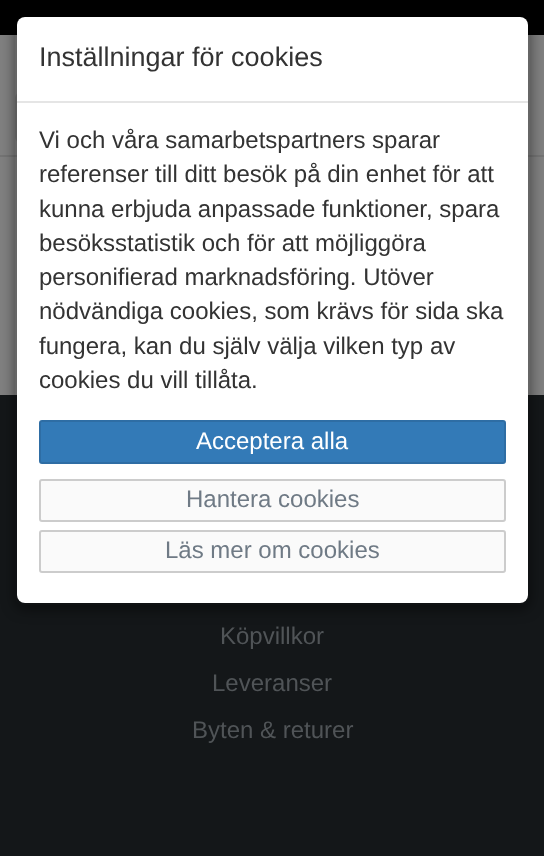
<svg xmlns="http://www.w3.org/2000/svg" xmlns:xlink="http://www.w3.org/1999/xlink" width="544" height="856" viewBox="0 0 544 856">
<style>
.cls-1{font:27px Liberation Sans;fill:#333333}
.cls-2{font:24px Liberation Sans;fill:#333333}
.cls-3{font:24px Liberation Sans;fill:#ffffff}
.cls-4{font:24px Liberation Sans;fill:#6f7a85}
.cls-5{font:24px Liberation Sans;fill:#505457}
</style>
<defs>
<clipPath id="clip1"><path d="M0 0H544V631H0ZM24 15H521C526 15 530 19 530 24V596C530 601 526 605 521 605H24C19 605 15 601 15 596V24C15 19 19 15 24 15Z" clip-rule="evenodd"/></clipPath>
</defs>
<rect width="100%" height="100%" fill="#808080"/>
<rect fill="#747474" x="0" y="155" width="544" height="2"/>
<rect fill="#000000" x="0" y="0" width="544" height="35"/>
<rect fill="none" stroke="#747474" stroke-width="2" x="16" y="93" width="64" height="49" rx="5"/>
<rect fill="#141719" x="0" y="395" width="544" height="461"/>
<g clip-path="url(#clip1)">
<rect fill="#000000" fill-opacity="0.5" filter="blur(7px)" x="15" y="20" width="515" height="589" rx="9"/>
</g>
<rect fill="#ffffff" x="17" y="17" width="511" height="586" rx="8"/>
<rect fill="none" stroke="#000000" stroke-opacity="0.2" stroke-width="2" x="16" y="16" width="513" height="588" rx="8"/>
<rect fill="#e5e5e5" x="17" y="101" width="511" height="2"/>
<rect fill="#337ab7" stroke="#2e6da4" stroke-width="2" x="40" y="421" width="465" height="42" rx="2"/>
<rect fill="#fafafa" stroke="#cccccc" stroke-width="2" x="40" y="480" width="465" height="41" rx="2"/>
<rect fill="#fafafa" stroke="#cccccc" stroke-width="2" x="40" y="531" width="465" height="41" rx="2"/>
<text class="cls-1" x="39" y="66">Inställningar för cookies</text>
<text class="cls-2"><tspan x="39" y="148">Vi och våra samarbetspartners sparar</tspan><tspan x="39" y="182">referenser till ditt besök på din enhet för att</tspan><tspan x="39" y="217">kunna erbjuda anpassade funktioner, spara</tspan><tspan x="39" y="251">besöksstatistik och för att möjliggöra</tspan><tspan x="39" y="285">personifierad marknadsföring. Utöver</tspan><tspan x="39" y="319">nödvändiga cookies, som krävs för sida ska</tspan><tspan x="39" y="354">fungera, kan du själv välja vilken typ av</tspan><tspan x="39" y="388">cookies du vill tillåta.</tspan></text>
<text class="cls-3" x="196" y="449">Acceptera alla</text>
<text class="cls-4" x="186" y="507">Hantera cookies</text>
<text class="cls-4" x="165" y="558">Läs mer om cookies</text>
<text class="cls-5" x="220" y="644">Köpvillkor</text>
<text class="cls-5" x="212" y="691">Leveranser</text>
<text class="cls-5" x="192" y="738">Byten &amp; returer</text>
</svg>
